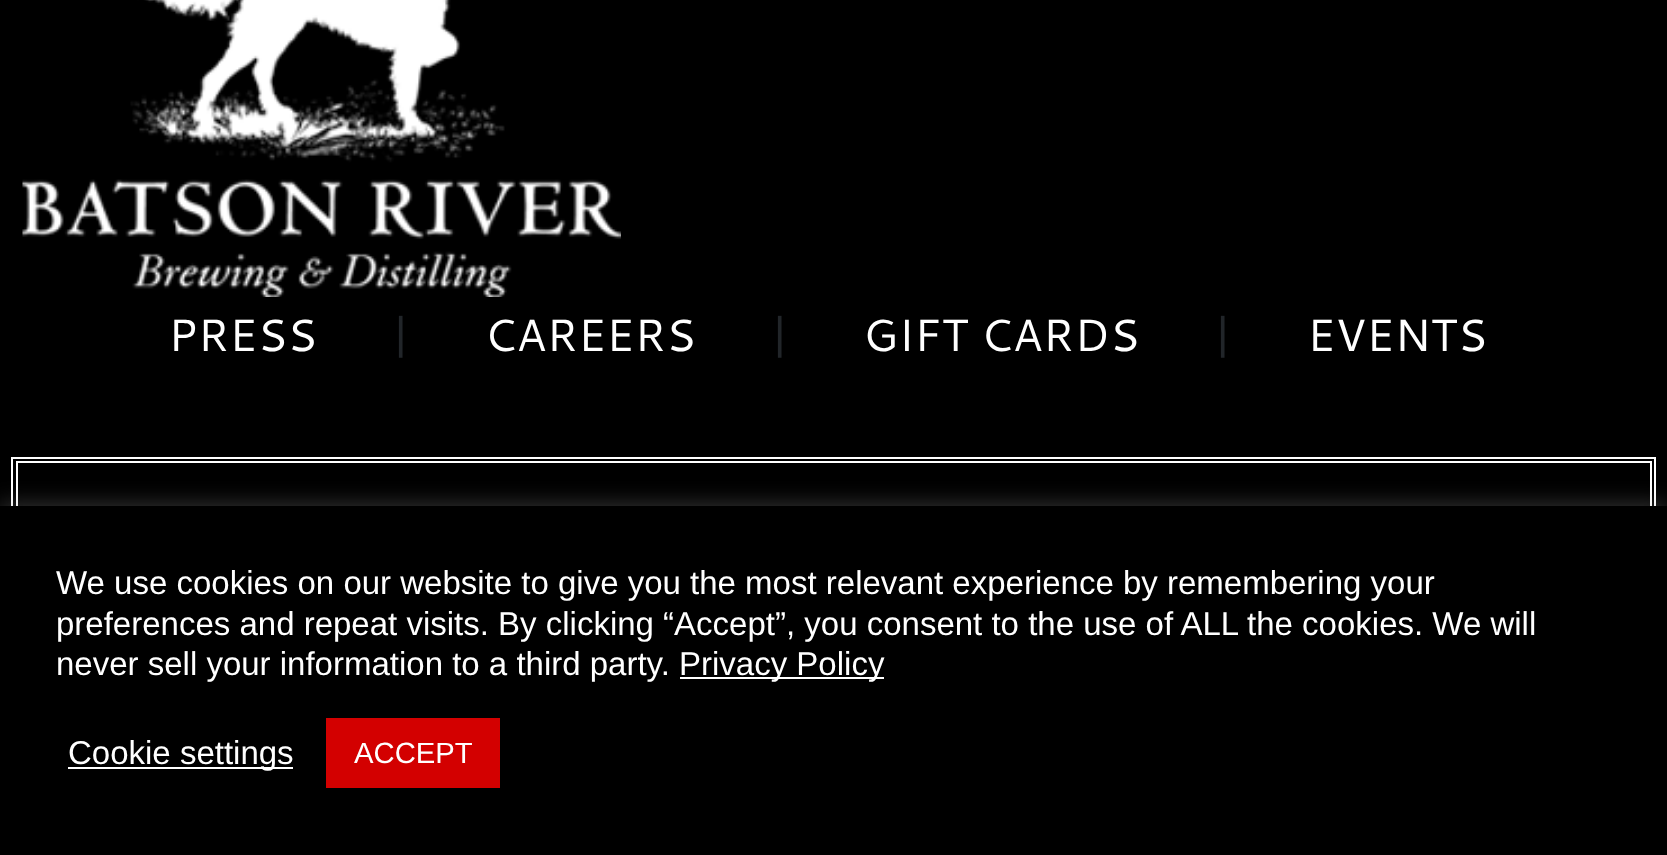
<svg xmlns="http://www.w3.org/2000/svg" xmlns:xlink="http://www.w3.org/1999/xlink" width="1667" height="855" viewBox="0 0 1667 855">
<style>
.cls-1{font:45px Cantarell;fill:#ffffff}
.cls-2{font:45px Cantarell;fill:#212529}
.cls-3{font:33px Liberation Sans;fill:#ffffff}
.cls-4{font:29.25px Liberation Sans;fill:#ffffff}
</style>
<rect width="100%" height="100%" fill="#000000"/>
<image xlink:href="image0.png" x="22" y="0" width="599" height="297"/>
<rect fill="none" stroke="#ffffff" stroke-width="2" x="12" y="458" width="1643" height="315"/>
<rect fill="none" stroke="#ffffff" stroke-width="2" x="17" y="462" width="1634" height="307"/>
<rect fill="#acabab" fill-opacity="0.3" filter="blur(11px)" x="0" y="504" width="1667" height="349"/>
<rect fill="#000000" x="0" y="506" width="1667" height="349"/>
<rect fill="#ffffff" x="680" y="677" width="204" height="2"/>
<rect fill="#ffffff" x="68" y="767" width="225" height="2"/>
<rect fill="#d30000" x="326" y="718" width="174" height="70"/>
<text class="cls-1" x="168" y="351">PRESS</text>
<text class="cls-2" x="391" y="351">|</text>
<text class="cls-1" x="484" y="351">CAREERS</text>
<text class="cls-2" x="770" y="351">|</text>
<text class="cls-1" x="863" y="351">GIFT CARDS</text>
<text class="cls-2" x="1213" y="351">|</text>
<text class="cls-1" x="1307" y="351">EVENTS</text>
<text class="cls-3"><tspan x="56" y="594">We use cookies on our website to give you the most relevant experience by remembering your</tspan><tspan x="56" y="635">preferences and repeat visits. By clicking “Accept”, you consent to the use of ALL the cookies. We will</tspan><tspan x="56" y="675">never sell your information to a third party.</tspan></text>
<text class="cls-3" x="679" y="675">Privacy Policy</text>
<text class="cls-3" x="68" y="764">Cookie settings</text>
<text class="cls-4" x="354" y="763">ACCEPT</text>
</svg>
